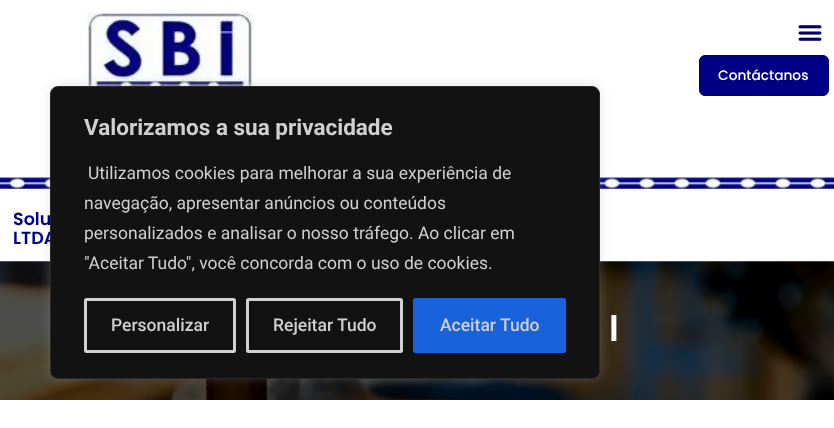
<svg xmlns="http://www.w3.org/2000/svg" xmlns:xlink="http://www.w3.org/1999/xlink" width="834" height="428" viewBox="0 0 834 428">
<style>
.cls-1{font:500 13.75px Poppins;fill:#ffffff}
.cls-2{font:600 17.5px Poppins;fill:#010084}
.cls-3{font:bold 22.5px Roboto;fill:#d0d0d0}
.cls-4{font:17.5px Roboto;fill:#d0d0d0}
.cls-5{font:500 17.5px Roboto;fill:#d0d0d0}
.cls-6{font:600 35px Poppins;fill:#ffffff}
</style>
<rect width="100%" height="100%" fill="#ffffff"/>
<image xlink:href="image0.png" x="87" y="12" width="167" height="74"/>
<image xlink:href="image1.png" x="798" y="25" width="24" height="16"/>
<rect fill="#010084" stroke="#020165" x="699.5" y="55.5" width="129" height="40" rx="5.5"/>
<image xlink:href="image2.png" x="0" y="177" width="834" height="12"/>
<image xlink:href="image3.png" x="0" y="261" width="834" height="139"/>
<rect fill="#acabab" fill-opacity="0.3" filter="blur(6px)" x="50" y="85" width="550" height="293" rx="8"/>
<text class="cls-1" x="718" y="80">Contáctanos</text>
<text class="cls-2"><tspan x="13" y="225">Solu</tspan><tspan x="13" y="244">LTDA</tspan></text>
<rect fill="#121212" stroke="#2a2a2a" x="50.5" y="86.5" width="549" height="292" rx="7.5"/>
<text class="cls-3" x="84" y="135">Valorizamos a sua privacidade</text>
<text class="cls-4" x="88" y="179">Utilizamos cookies para melhorar a sua experiência de</text>
<text class="cls-4"><tspan x="84" y="209">navegação, apresentar anúncios ou conteúdos</tspan><tspan x="84" y="239">personalizados e analisar o nosso tráfego. Ao clicar em</tspan><tspan x="84" y="269">"Aceitar Tudo", você concorda com o uso de cookies.</tspan></text>
<rect fill="none" stroke="#d0d0d0" stroke-width="3" x="85.5" y="299.5" width="149" height="52" rx="1"/>
<text class="cls-5" x="111" y="331">Personalizar</text>
<rect fill="none" stroke="#d0d0d0" stroke-width="3" x="247.5" y="299.5" width="154" height="52" rx="1"/>
<text class="cls-5" x="273" y="331">Rejeitar Tudo</text>
<rect fill="#1863dc" stroke="#1863dc" stroke-width="3" x="414.5" y="299.5" width="150" height="52" rx="1"/>
<text class="cls-5" x="440" y="331">Aceitar Tudo</text>
<text class="cls-6" x="609" y="341">l</text>
</svg>
